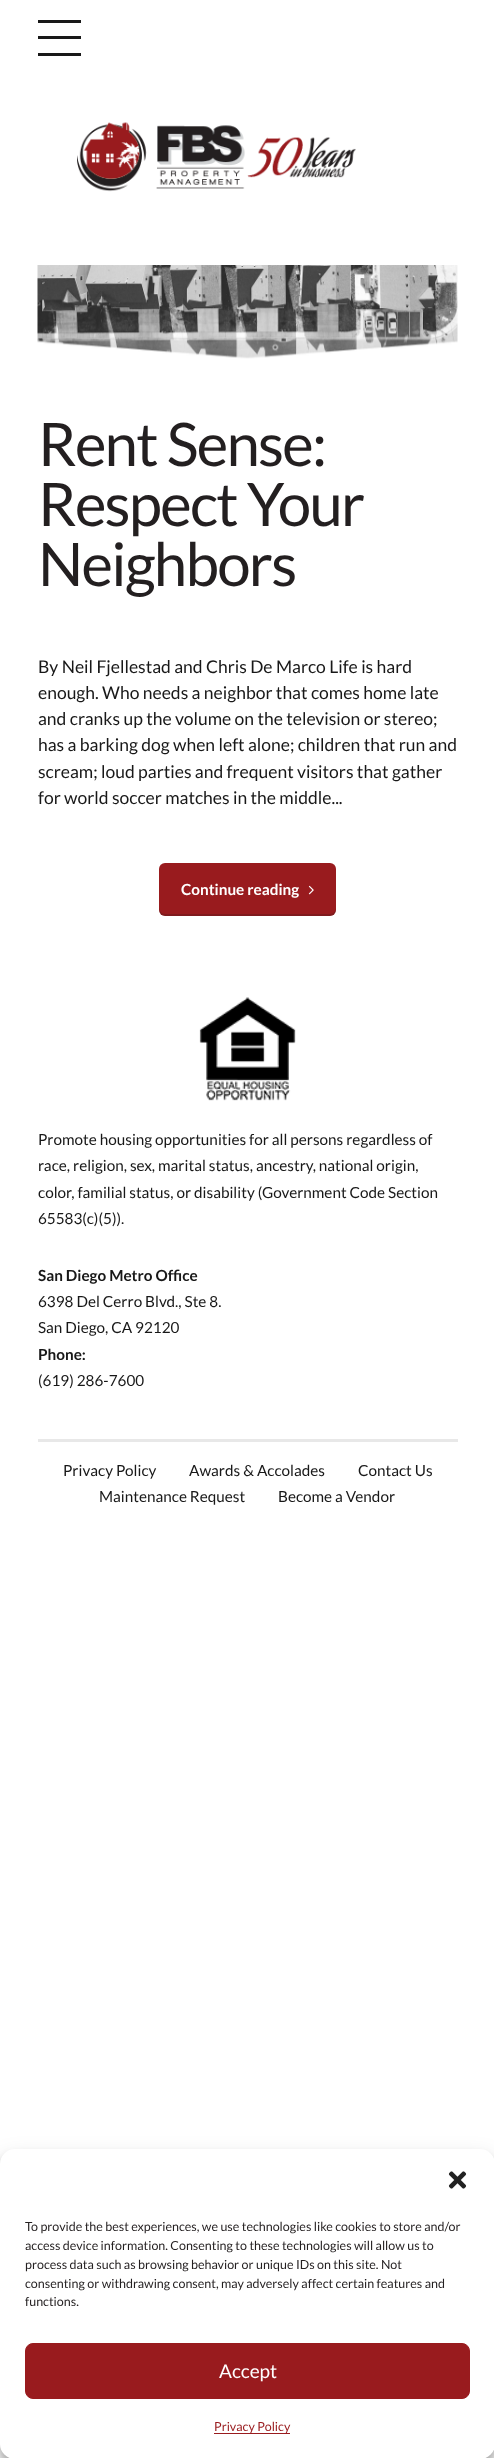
<svg xmlns="http://www.w3.org/2000/svg" xmlns:xlink="http://www.w3.org/1999/xlink" width="494" height="2458" viewBox="0 0 494 2458">
<style>
.cls-1{font:60px Lato;letter-spacing:-1.75px;fill:#231f20}
.cls-2{font:17.5px Lato;fill:#181818}
.cls-3{font:bold 15.3px Lato;fill:#ffffff}
.cls-4{font:15.3px Lato;fill:#181818}
.cls-5{font:bold 15.3px Lato;fill:#181818}
.cls-6{font:12.5px Lato;fill:#231f20}
.cls-7{font:19px Lato;fill:#ffffff}
.cls-8{font:12.5px Lato;fill:#991b1e}
</style>
<rect width="100%" height="100%" fill="#ffffff"/>
<rect fill="#181818" x="38" y="20" width="43" height="3"/>
<rect fill="#181818" x="38" y="36" width="43" height="3"/>
<rect fill="#181818" x="38" y="53" width="43" height="3"/>
<image xlink:href="image0.png" x="77" y="122" width="279" height="70"/>
<image xlink:href="image1.png" x="37" y="265" width="421" height="94"/>
<rect fill="#991b1e" x="159" y="863" width="177" height="53" rx="6"/>
<path fill="#181818" fill-opacity="0.2" d="M159 908V910C159 913 162 916 165 916H330C333 916 336 913 336 910V908C336 911 333 914 330 914H165C162 914 159 911 159 908Z"/>
<image xlink:href="image2.png" x="308" y="885" width="6" height="10"/>
<image xlink:href="image3.png" x="199" y="997" width="97" height="104"/>
<rect fill="#e8e8e8" x="38" y="1439" width="420" height="3"/>
<rect fill="#000000" fill-opacity="0.23" filter="blur(4px)" x="0" y="2156" width="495" height="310" rx="15"/>
<rect fill="#000000" fill-opacity="0.19" filter="blur(12.5px)" x="0" y="2161" width="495" height="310" rx="15"/>
<rect fill="#ffffff" x="0" y="2149" width="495" height="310" rx="15"/>
<image xlink:href="image4.png" x="448" y="2171" width="19" height="18"/>
<rect fill="#991b1e" stroke="#991b1e" x="25.5" y="2343.5" width="444" height="55" rx="7.5"/>
<rect fill="#991b1e" x="214" y="2433" width="76" height="1"/>
<text class="cls-1"><tspan x="38" y="466">Rent Sense:</tspan><tspan x="38" y="526">Respect Your</tspan><tspan x="38" y="586">Neighbors</tspan></text>
<text class="cls-2"><tspan x="38" y="673">By Neil Fjellestad and Chris De Marco Life is hard</tspan><tspan x="38" y="699">enough. Who needs a neighbor that comes home late</tspan><tspan x="38" y="725">and cranks up the volume on the television or stereo;</tspan><tspan x="38" y="751">has a barking dog when left alone; children that run and</tspan><tspan x="38" y="778">scream; loud parties and frequent visitors that gather</tspan><tspan x="38" y="804">for world soccer matches in the middle...</tspan></text>
<text class="cls-3" x="181" y="895">Continue reading</text>
<text class="cls-4"><tspan x="38" y="1145">Promote housing opportunities for all persons regardless of</tspan><tspan x="38" y="1171">race, religion, sex, marital status, ancestry, national origin,</tspan><tspan x="38" y="1198">color, familial status, or disability (Government Code Section</tspan><tspan x="38" y="1224">65583(c)(5)).</tspan></text>
<text class="cls-5" x="38" y="1281">San Diego Metro Office</text>
<text class="cls-4"><tspan x="38" y="1307">6398 Del Cerro Blvd., Ste 8.</tspan><tspan x="38" y="1333">San Diego, CA 92120</tspan></text>
<text class="cls-5" x="38" y="1360">Phone:</text>
<text class="cls-4" x="38" y="1386">(619) 286-7600</text>
<text class="cls-4" x="63" y="1476">Privacy Policy</text>
<text class="cls-4" x="189" y="1476">Awards &amp; Accolades</text>
<text class="cls-4" x="358" y="1476">Contact Us</text>
<text class="cls-4" x="99" y="1502">Maintenance Request</text>
<text class="cls-4" x="278" y="1502">Become a Vendor</text>
<text class="cls-6"><tspan x="25" y="2231">To provide the best experiences, we use technologies like cookies to store and/or</tspan><tspan x="25" y="2250">access device information. Consenting to these technologies will allow us to</tspan><tspan x="25" y="2269">process data such as browsing behavior or unique IDs on this site. Not</tspan><tspan x="25" y="2288">consenting or withdrawing consent, may adversely affect certain features and</tspan><tspan x="25" y="2306">functions.</tspan></text>
<text class="cls-7" x="219" y="2378">Accept</text>
<text class="cls-8" x="214" y="2431">Privacy Policy</text>
</svg>
